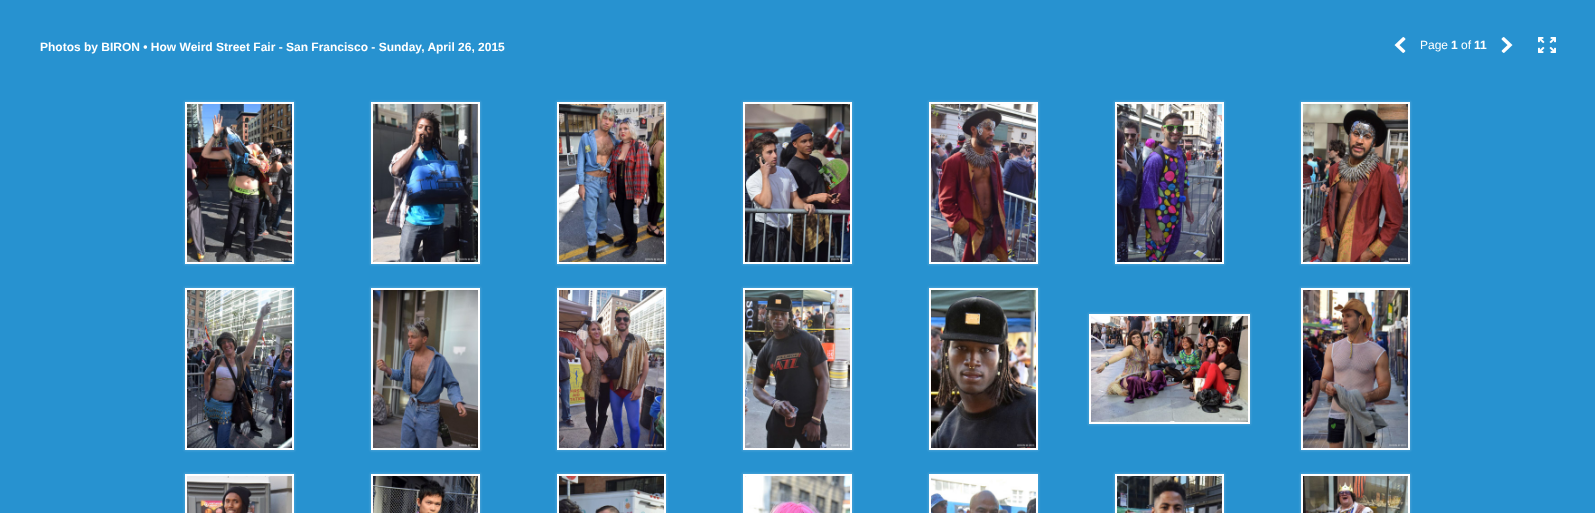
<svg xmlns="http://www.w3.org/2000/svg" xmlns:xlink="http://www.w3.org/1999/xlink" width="1595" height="513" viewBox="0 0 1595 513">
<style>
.cls-1{font:bold 12px Liberation Sans;fill:#ffffff}
.cls-2{font:12px Liberation Sans;fill:#ffffff}
</style>
<rect width="100%" height="100%" fill="#2792d0"/>
<image xlink:href="image0.png" x="1394" y="37" width="12" height="16"/>
<image xlink:href="image1.png" x="1501" y="37" width="12" height="16"/>
<image xlink:href="image2.png" x="1538" y="37" width="18" height="16"/>
<rect fill="#ffffff" fill-opacity="0.15" filter="blur(1px)" x="184" y="101" width="111" height="164"/>
<rect fill="none" stroke="#ffffff" stroke-width="2" x="186" y="103" width="107" height="160"/>
<image xlink:href="image3.png" x="187" y="104" width="105" height="158"/>
<rect fill="#ffffff" fill-opacity="0.15" filter="blur(1px)" x="370" y="101" width="111" height="164"/>
<rect fill="none" stroke="#ffffff" stroke-width="2" x="372" y="103" width="107" height="160"/>
<image xlink:href="image4.png" x="373" y="104" width="105" height="158"/>
<rect fill="#ffffff" fill-opacity="0.15" filter="blur(1px)" x="556" y="101" width="111" height="164"/>
<rect fill="none" stroke="#ffffff" stroke-width="2" x="558" y="103" width="107" height="160"/>
<image xlink:href="image5.png" x="559" y="104" width="105" height="158"/>
<rect fill="#ffffff" fill-opacity="0.15" filter="blur(1px)" x="742" y="101" width="111" height="164"/>
<rect fill="none" stroke="#ffffff" stroke-width="2" x="744" y="103" width="107" height="160"/>
<image xlink:href="image6.png" x="745" y="104" width="105" height="158"/>
<rect fill="#ffffff" fill-opacity="0.15" filter="blur(1px)" x="928" y="101" width="111" height="164"/>
<rect fill="none" stroke="#ffffff" stroke-width="2" x="930" y="103" width="107" height="160"/>
<image xlink:href="image7.png" x="931" y="104" width="105" height="158"/>
<rect fill="#ffffff" fill-opacity="0.15" filter="blur(1px)" x="1114" y="101" width="111" height="164"/>
<rect fill="none" stroke="#ffffff" stroke-width="2" x="1116" y="103" width="107" height="160"/>
<image xlink:href="image8.png" x="1117" y="104" width="105" height="158"/>
<rect fill="#ffffff" fill-opacity="0.15" filter="blur(1px)" x="1300" y="101" width="111" height="164"/>
<rect fill="none" stroke="#ffffff" stroke-width="2" x="1302" y="103" width="107" height="160"/>
<image xlink:href="image9.png" x="1303" y="104" width="105" height="158"/>
<rect fill="#ffffff" fill-opacity="0.15" filter="blur(1px)" x="184" y="287" width="111" height="164"/>
<rect fill="none" stroke="#ffffff" stroke-width="2" x="186" y="289" width="107" height="160"/>
<image xlink:href="image10.png" x="187" y="290" width="105" height="158"/>
<rect fill="#ffffff" fill-opacity="0.15" filter="blur(1px)" x="370" y="287" width="111" height="164"/>
<rect fill="none" stroke="#ffffff" stroke-width="2" x="372" y="289" width="107" height="160"/>
<image xlink:href="image11.png" x="373" y="290" width="105" height="158"/>
<rect fill="#ffffff" fill-opacity="0.15" filter="blur(1px)" x="556" y="287" width="111" height="164"/>
<rect fill="none" stroke="#ffffff" stroke-width="2" x="558" y="289" width="107" height="160"/>
<image xlink:href="image12.png" x="559" y="290" width="105" height="158"/>
<rect fill="#ffffff" fill-opacity="0.15" filter="blur(1px)" x="742" y="287" width="111" height="164"/>
<rect fill="none" stroke="#ffffff" stroke-width="2" x="744" y="289" width="107" height="160"/>
<image xlink:href="image13.png" x="745" y="290" width="105" height="158"/>
<rect fill="#ffffff" fill-opacity="0.15" filter="blur(1px)" x="928" y="287" width="111" height="164"/>
<rect fill="none" stroke="#ffffff" stroke-width="2" x="930" y="289" width="107" height="160"/>
<image xlink:href="image14.png" x="931" y="290" width="105" height="158"/>
<rect fill="#ffffff" fill-opacity="0.15" filter="blur(1px)" x="1088" y="313" width="163" height="112"/>
<rect fill="none" stroke="#ffffff" stroke-width="2" x="1090" y="315" width="159" height="108"/>
<image xlink:href="image15.png" x="1091" y="316" width="157" height="106"/>
<rect fill="#ffffff" fill-opacity="0.15" filter="blur(1px)" x="1300" y="287" width="111" height="164"/>
<rect fill="none" stroke="#ffffff" stroke-width="2" x="1302" y="289" width="107" height="160"/>
<image xlink:href="image16.png" x="1303" y="290" width="105" height="158"/>
<rect fill="#ffffff" fill-opacity="0.15" filter="blur(1px)" x="184" y="473" width="111" height="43"/>
<rect fill="none" stroke="#ffffff" stroke-width="2" x="186" y="475" width="107" height="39"/>
<image xlink:href="image17.png" x="187" y="476" width="105" height="37"/>
<rect fill="#ffffff" fill-opacity="0.15" filter="blur(1px)" x="370" y="473" width="111" height="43"/>
<rect fill="none" stroke="#ffffff" stroke-width="2" x="372" y="475" width="107" height="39"/>
<image xlink:href="image18.png" x="373" y="476" width="105" height="37"/>
<rect fill="#ffffff" fill-opacity="0.15" filter="blur(1px)" x="556" y="473" width="111" height="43"/>
<rect fill="none" stroke="#ffffff" stroke-width="2" x="558" y="475" width="107" height="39"/>
<image xlink:href="image19.png" x="559" y="476" width="105" height="37"/>
<rect fill="#ffffff" fill-opacity="0.15" filter="blur(1px)" x="742" y="473" width="111" height="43"/>
<rect fill="none" stroke="#ffffff" stroke-width="2" x="744" y="475" width="107" height="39"/>
<image xlink:href="image20.png" x="745" y="476" width="105" height="37"/>
<rect fill="#ffffff" fill-opacity="0.15" filter="blur(1px)" x="928" y="473" width="111" height="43"/>
<rect fill="none" stroke="#ffffff" stroke-width="2" x="930" y="475" width="107" height="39"/>
<image xlink:href="image21.png" x="931" y="476" width="105" height="37"/>
<rect fill="#ffffff" fill-opacity="0.15" filter="blur(1px)" x="1114" y="473" width="111" height="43"/>
<rect fill="none" stroke="#ffffff" stroke-width="2" x="1116" y="475" width="107" height="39"/>
<image xlink:href="image22.png" x="1117" y="476" width="105" height="37"/>
<rect fill="#ffffff" fill-opacity="0.15" filter="blur(1px)" x="1300" y="473" width="111" height="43"/>
<rect fill="none" stroke="#ffffff" stroke-width="2" x="1302" y="475" width="107" height="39"/>
<image xlink:href="image23.png" x="1303" y="476" width="105" height="37"/>
<text class="cls-1" x="40" y="51">Photos by BIRON • How Weird Street Fair - San Francisco - Sunday, April 26, 2015</text>
<text class="cls-2" x="1420" y="49">Page</text>
<text class="cls-1" x="1451" y="49">1</text>
<text class="cls-2" x="1461" y="49">of</text>
<text class="cls-1" x="1474" y="49">11</text>
</svg>
